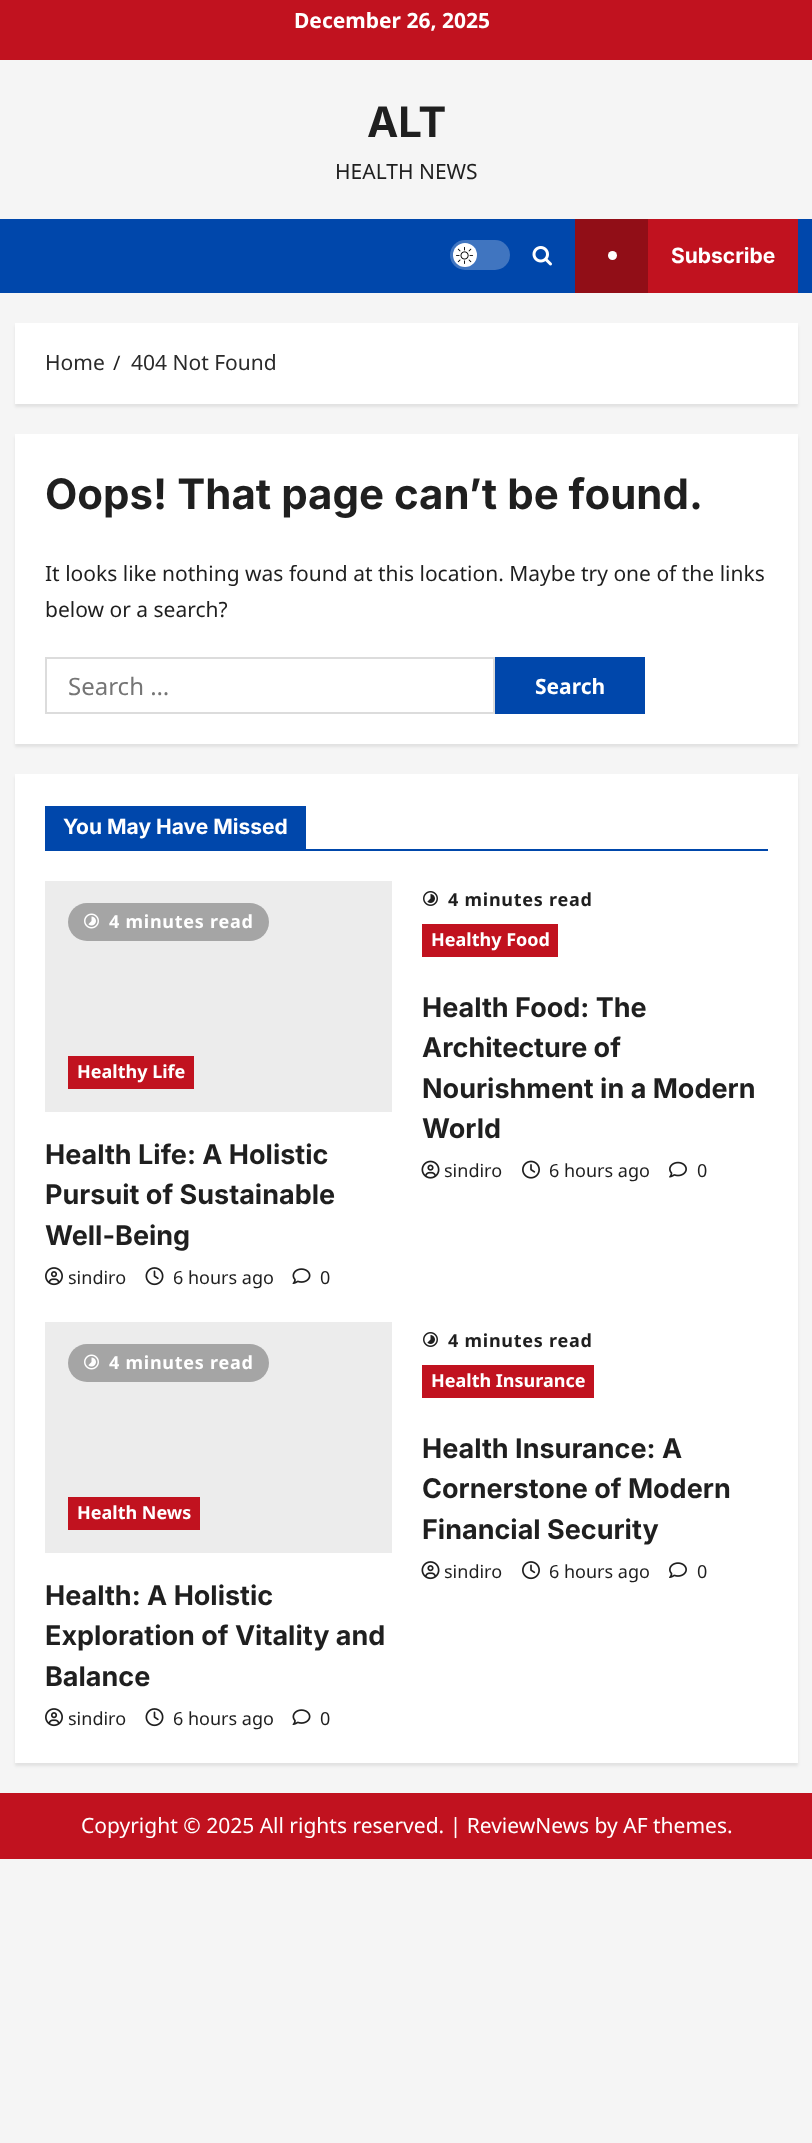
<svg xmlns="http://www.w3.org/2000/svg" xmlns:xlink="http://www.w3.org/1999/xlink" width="812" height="2143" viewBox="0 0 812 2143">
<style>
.cls-1{font:bold 21px Noto Sans;fill:#ffffff}
.cls-2{font:bold 42px Inter;fill:#1f1f1f}
.cls-3{font:21px Noto Sans;fill:#1f1f1f}
.cls-4{font:bold 21px Inter;fill:#ffffff}
.cls-5{font:21px Noto Sans;fill:#2a2a2a}
.cls-6{font:20px Noto Sans;fill:#1f1f1f}
.cls-7{font:24px Noto Sans;fill:#757575}
.cls-8{font:bold 18px Noto Sans;letter-spacing:0.75px;fill:#ffffff}
.cls-9{font:bold 18px Noto Sans;fill:#ffffff}
.cls-10{font:bold 27px Inter;fill:#1f1f1f}
.cls-11{font:18px Noto Sans;fill:#1f1f1f}
.cls-12{font:bold 18px Noto Sans;letter-spacing:0.75px;fill:#1f1f1f}
.cls-13{font:21px Noto Sans;fill:#ffffff}
</style>
<rect width="100%" height="100%" fill="#f5f5f5"/>
<rect fill="#c1121f" x="0" y="0" width="812" height="60"/>
<rect fill="#0047ab" x="0" y="219" width="812" height="74"/>
<rect fill="#4075c0" x="450" y="240" width="60" height="30" rx="15"/>
<circle fill="#ffffff" cx="465" cy="255" r="12"/>
<image xlink:href="image0.png" x="456" y="246" width="18" height="18"/>
<image xlink:href="image1.png" x="532" y="246" width="20" height="20"/>
<rect fill="#c1121f" x="648" y="219" width="150" height="74"/>
<rect fill="#910e17" x="575" y="219" width="73" height="74"/>
<circle fill="#ffffff" cx="612.5" cy="255.5" r="4.5"/>
<rect fill="#000000" fill-opacity="0.08" filter="blur(1.5px)" x="15" y="326" width="783" height="81"/>
<rect fill="#ffffff" x="15" y="323" width="783" height="81"/>
<rect fill="#000000" fill-opacity="0.08" filter="blur(1.5px)" x="15" y="437" width="783" height="310"/>
<rect fill="#ffffff" x="15" y="434" width="783" height="310"/>
<rect fill="none" stroke="#dcdcdc" stroke-width="2" x="46" y="658" width="448" height="55"/>
<rect fill="#0047ab" x="495" y="657" width="150" height="57"/>
<rect fill="#000000" fill-opacity="0.08" filter="blur(1.5px)" x="15" y="777" width="783" height="989"/>
<rect fill="#ffffff" x="15" y="774" width="783" height="989"/>
<rect fill="#0047ab" x="45" y="849" width="723" height="2"/>
<rect fill="#0047ab" x="45" y="806" width="261" height="43"/>
<rect fill="#ececec" x="45" y="881" width="347" height="231"/>
<rect fill="#a5a5a5" x="68" y="903" width="201" height="38" rx="19"/>
<image xlink:href="image2.png" x="84" y="913" width="15" height="16"/>
<rect fill="#c1121f" x="68" y="1056" width="126" height="33"/>
<image xlink:href="image3.png" x="45" y="1267" width="18" height="19"/>
<image xlink:href="image4.png" x="145" y="1267" width="19" height="19"/>
<image xlink:href="image5.png" x="292" y="1268" width="19" height="16"/>
<image xlink:href="image6.png" x="423" y="891" width="15" height="15"/>
<rect fill="#c1121f" x="422" y="924" width="136" height="33"/>
<image xlink:href="image7.png" x="421" y="1160" width="19" height="19"/>
<image xlink:href="image8.png" x="522" y="1160" width="18" height="19"/>
<image xlink:href="image9.png" x="669" y="1161" width="18" height="17"/>
<rect fill="#ececec" x="45" y="1322" width="347" height="231"/>
<rect fill="#a5a5a5" x="68" y="1344" width="201" height="38" rx="19"/>
<image xlink:href="image2.png" x="84" y="1354" width="15" height="16"/>
<rect fill="#c1121f" x="68" y="1497" width="132" height="33"/>
<image xlink:href="image3.png" x="45" y="1708" width="18" height="19"/>
<image xlink:href="image4.png" x="145" y="1708" width="19" height="19"/>
<image xlink:href="image5.png" x="292" y="1709" width="19" height="16"/>
<image xlink:href="image6.png" x="423" y="1332" width="15" height="15"/>
<rect fill="#c1121f" x="422" y="1365" width="172" height="33"/>
<image xlink:href="image10.png" x="421" y="1561" width="19" height="19"/>
<image xlink:href="image11.png" x="522" y="1561" width="18" height="19"/>
<image xlink:href="image12.png" x="669" y="1562" width="18" height="16"/>
<rect fill="#c1121f" x="0" y="1793" width="812" height="66"/>
<text class="cls-1" x="294" y="28">December 26, 2025</text>
<text class="cls-2" x="367" y="137">ALT</text>
<text class="cls-3" x="335" y="179">HEALTH NEWS</text>
<text class="cls-4" x="671" y="263">Subscribe</text>
<text class="cls-5" x="45" y="370">Home</text>
<text class="cls-6" x="113" y="370">/</text>
<text class="cls-5" x="131" y="370">404 Not Found</text>
<text class="cls-2" x="45" y="509">Oops! That page can’t be found.</text>
<text class="cls-3"><tspan x="45" y="581">It looks like nothing was found at this location. Maybe try one of the links</tspan><tspan x="45" y="617">below or a search?</tspan></text>
<text class="cls-7" x="68" y="695">Search …</text>
<text class="cls-1" x="535" y="694">Search</text>
<text class="cls-4" x="63" y="834">You May Have Missed</text>
<text class="cls-8" x="109" y="928">4 minutes read</text>
<text class="cls-9" x="77" y="1078">Healthy Life</text>
<text class="cls-10"><tspan x="45" y="1164">Health Life: A Holistic</tspan><tspan x="45" y="1204">Pursuit of Sustainable</tspan><tspan x="45" y="1245">Well-Being</tspan></text>
<text class="cls-11" x="68" y="1284">sindiro</text>
<text class="cls-11" x="173" y="1284">6 hours ago</text>
<text class="cls-11" x="320" y="1284">0</text>
<text class="cls-12" x="448" y="906">4 minutes read</text>
<text class="cls-9" x="431" y="946">Healthy Food</text>
<text class="cls-10"><tspan x="422" y="1017">Health Food: The</tspan><tspan x="422" y="1057">Architecture of</tspan><tspan x="422" y="1098">Nourishment in a Modern</tspan><tspan x="422" y="1138">World</tspan></text>
<text class="cls-11" x="444" y="1177">sindiro</text>
<text class="cls-11" x="549" y="1177">6 hours ago</text>
<text class="cls-11" x="697" y="1177">0</text>
<text class="cls-8" x="109" y="1369">4 minutes read</text>
<text class="cls-9" x="77" y="1519">Health News</text>
<text class="cls-10"><tspan x="45" y="1605">Health: A Holistic</tspan><tspan x="45" y="1645">Exploration of Vitality and</tspan><tspan x="45" y="1686">Balance</tspan></text>
<text class="cls-11" x="68" y="1725">sindiro</text>
<text class="cls-11" x="173" y="1725">6 hours ago</text>
<text class="cls-11" x="320" y="1725">0</text>
<text class="cls-12" x="448" y="1347">4 minutes read</text>
<text class="cls-9" x="431" y="1387">Health Insurance</text>
<text class="cls-10"><tspan x="422" y="1458">Health Insurance: A</tspan><tspan x="422" y="1498">Cornerstone of Modern</tspan><tspan x="422" y="1539">Financial Security</tspan></text>
<text class="cls-11" x="444" y="1578">sindiro</text>
<text class="cls-11" x="549" y="1578">6 hours ago</text>
<text class="cls-11" x="697" y="1578">0</text>
<text class="cls-13" x="81" y="1833">Copyright © 2025 All rights reserved. | ReviewNews by AF themes.</text>
</svg>
